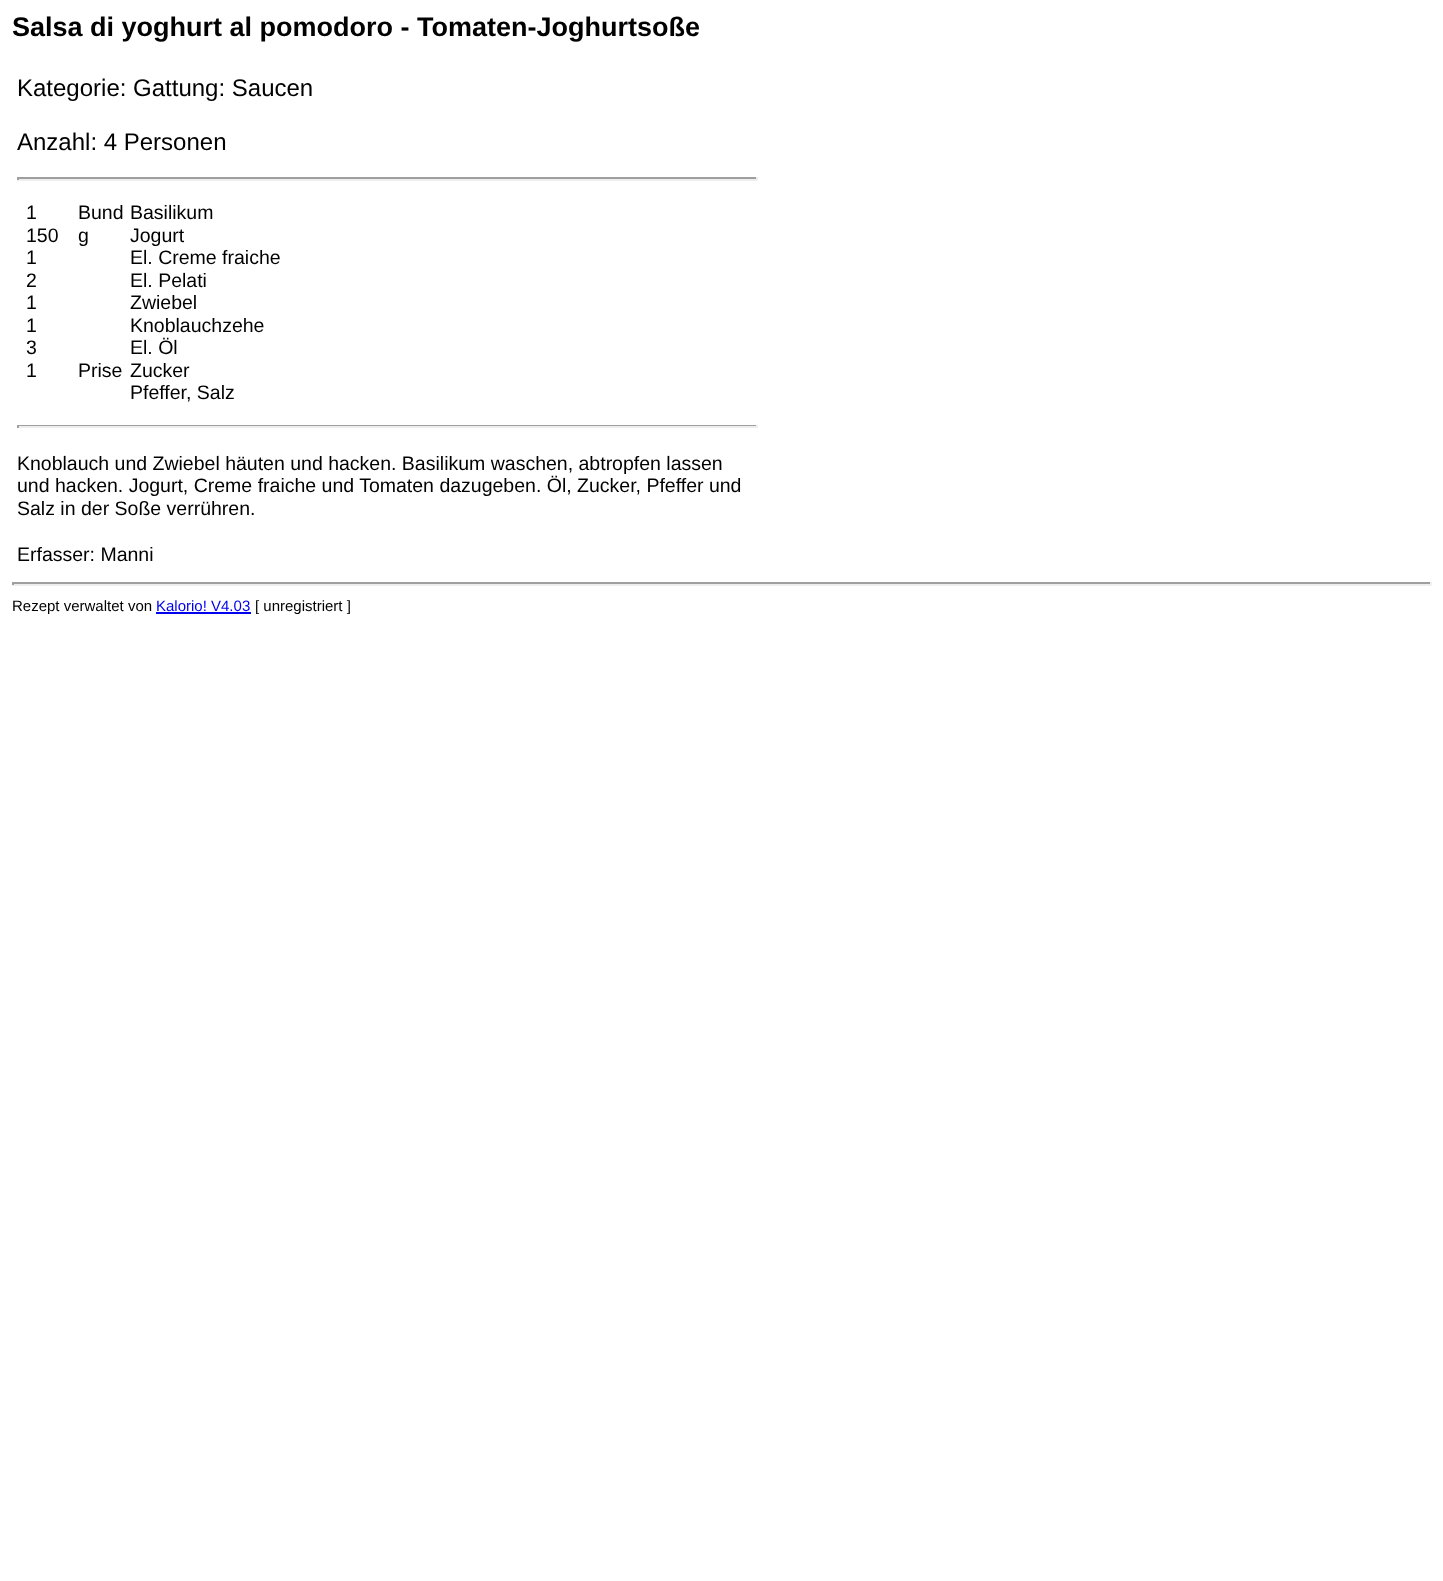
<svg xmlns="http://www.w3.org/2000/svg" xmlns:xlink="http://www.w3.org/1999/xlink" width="1443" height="1581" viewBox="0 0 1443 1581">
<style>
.cls-1{font:bold 27px Liberation Sans;fill:#000000}
.cls-2{font:24px Liberation Sans;fill:#000000}
.cls-3{font:19.5px Liberation Sans;fill:#000000}
.cls-4{font:15px Liberation Sans;fill:#000000}
.cls-5{font:15px Liberation Sans;fill:#0000ee}
</style>
<rect width="100%" height="100%" fill="#ffffff"/>
<rect fill="#9f9f9f" x="17" y="177" width="741" height="2"/>
<rect fill="#eeeeee" x="756" y="177" width="2" height="3"/>
<rect fill="#eeeeee" x="17" y="179" width="741" height="2"/>
<rect fill="#9f9f9f" x="17" y="177" width="2" height="3"/>
<rect fill="#9f9f9f" x="17" y="425" width="741" height="1"/>
<rect fill="#eeeeee" x="756" y="425" width="2" height="3"/>
<rect fill="#eeeeee" x="17" y="426" width="741" height="2"/>
<rect fill="#9f9f9f" x="17" y="425" width="2" height="3"/>
<rect fill="#9f9f9f" x="12" y="582" width="1419" height="2"/>
<rect fill="#eeeeee" x="1430" y="582" width="2" height="3"/>
<rect fill="#eeeeee" x="12" y="584" width="1419" height="2"/>
<rect fill="#9f9f9f" x="12" y="582" width="2" height="3"/>
<rect fill="#0000ee" x="156" y="612" width="95" height="2"/>
<text class="cls-1" x="12" y="36">Salsa di yoghurt al pomodoro - Tomaten-Joghurtsoße</text>
<text class="cls-2" x="17" y="96">Kategorie: Gattung: Saucen</text>
<text class="cls-2" x="17" y="150">Anzahl: 4 Personen</text>
<text class="cls-3"><tspan x="26" y="219">1</tspan><tspan x="26" y="242">150</tspan><tspan x="26" y="264">1</tspan><tspan x="26" y="287">2</tspan><tspan x="26" y="309">1</tspan><tspan x="26" y="332">1</tspan><tspan x="26" y="354">3</tspan><tspan x="26" y="377">1</tspan></text>
<text class="cls-3"><tspan x="78" y="219">Bund</tspan><tspan x="78" y="242">g</tspan></text>
<text class="cls-3" x="78" y="377">Prise</text>
<text class="cls-3"><tspan x="130" y="219">Basilikum</tspan><tspan x="130" y="242">Jogurt</tspan><tspan x="130" y="264">El. Creme fraiche</tspan><tspan x="130" y="287">El. Pelati</tspan><tspan x="130" y="309">Zwiebel</tspan><tspan x="130" y="332">Knoblauchzehe</tspan><tspan x="130" y="354">El. Öl</tspan><tspan x="130" y="377">Zucker</tspan><tspan x="130" y="399">Pfeffer, Salz</tspan></text>
<text class="cls-3"><tspan x="17" y="470">Knoblauch und Zwiebel häuten und hacken. Basilikum waschen, abtropfen lassen</tspan><tspan x="17" y="492">und hacken. Jogurt, Creme fraiche und Tomaten dazugeben. Öl, Zucker, Pfeffer und</tspan><tspan x="17" y="515">Salz in der Soße verrühren.</tspan></text>
<text class="cls-3" x="17" y="561">Erfasser: Manni</text>
<text class="cls-4" x="12" y="611">Rezept verwaltet von</text>
<text class="cls-5" x="156" y="611">Kalorio! V4.03</text>
<text class="cls-4" x="255" y="611">[ unregistriert ]</text>
</svg>
